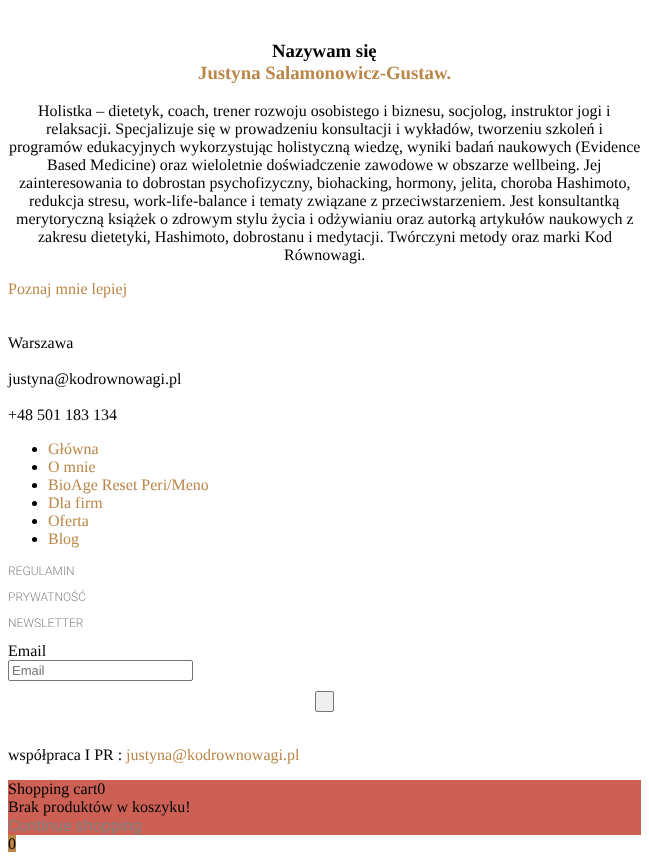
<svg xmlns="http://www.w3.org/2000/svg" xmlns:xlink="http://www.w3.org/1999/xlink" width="649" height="861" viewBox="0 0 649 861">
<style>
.cls-1{font:bold 18.75px Liberation Serif;fill:#000000}
.cls-2{font:bold 18.75px Liberation Serif;fill:#ba8748}
.cls-3{font:16px Liberation Serif;fill:#000000}
.cls-4{font:16px Liberation Serif;fill:#ba8748}
.cls-5{font:300 12px Roboto;fill:#898989}
.cls-6{font:13px Liberation Sans;fill:#757575}
.cls-7{font:16px Roboto;fill:#808080}
</style>
<rect width="100%" height="100%" fill="#ffffff"/>
<circle fill="#000000" cx="34.5" cy="449.5" r="2.5"/>
<circle fill="#000000" cx="34.5" cy="467.5" r="2.5"/>
<circle fill="#000000" cx="34.5" cy="485.5" r="2.5"/>
<circle fill="#000000" cx="34.5" cy="503.5" r="2.5"/>
<circle fill="#000000" cx="34.5" cy="521.5" r="2.5"/>
<circle fill="#000000" cx="34.5" cy="539.5" r="2.5"/>
<rect fill="none" stroke="#767676" x="8.5" y="660.5" width="184" height="20" rx="1.5"/>
<rect fill="#efefef" stroke="#767676" x="315.5" y="691.5" width="18" height="20" rx="1.5"/>
<rect fill="#cc6055" x="8" y="780" width="633" height="55"/>
<rect fill="#ba8748" x="8" y="835" width="8" height="17"/>
<text class="cls-1" x="272" y="57">Nazywam się</text>
<text class="cls-2" x="198" y="79">Justyna Salamonowicz-Gustaw.</text>
<text class="cls-3" x="38" y="116">Holistka – dietetyk, coach, trener rozwoju osobistego i biznesu, socjolog, instruktor jogi i</text>
<text class="cls-3" x="46" y="134">relaksacji. Specjalizuje się w prowadzeniu konsultacji i wykładów, tworzeniu szkoleń i</text>
<text class="cls-3" x="9" y="152">programów edukacyjnych wykorzystując holistyczną wiedzę, wyniki badań naukowych (Evidence</text>
<text class="cls-3" x="47" y="170">Based Medicine) oraz wieloletnie doświadczenie zawodowe w obszarze wellbeing. Jej</text>
<text class="cls-3" x="19" y="188">zainteresowania to dobrostan psychofizyczny, biohacking, hormony, jelita, choroba Hashimoto,</text>
<text class="cls-3" x="29" y="206">redukcja stresu, work-life-balance i tematy związane z przeciwstarzeniem. Jest konsultantką</text>
<text class="cls-3" x="16" y="224">merytoryczną książek o zdrowym stylu życia i odżywianiu oraz autorką artykułów naukowych z</text>
<text class="cls-3" x="38" y="242">zakresu dietetyki, Hashimoto, dobrostanu i medytacji. Twórczyni metody oraz marki Kod</text>
<text class="cls-3" x="284" y="260">Równowagi.</text>
<text class="cls-4" x="8" y="294">Poznaj mnie lepiej</text>
<text class="cls-3" x="8" y="348">Warszawa</text>
<text class="cls-3" x="8" y="384">justyna@kodrownowagi.pl</text>
<text class="cls-3" x="8" y="420">+48 501 183 134</text>
<text class="cls-4"><tspan x="48" y="454">Główna</tspan><tspan x="48" y="472">O mnie</tspan><tspan x="48" y="490">BioAge Reset Peri/Meno</tspan><tspan x="48" y="508">Dla firm</tspan><tspan x="48" y="526">Oferta</tspan><tspan x="48" y="544">Blog</tspan></text>
<text class="cls-5" x="8" y="575">REGULAMIN</text>
<text class="cls-5" x="8" y="601">PRYWATNOŚĆ</text>
<text class="cls-5" x="8" y="627">NEWSLETTER</text>
<text class="cls-3" x="8" y="656">Email</text>
<text class="cls-6" x="12" y="675">Email</text>
<text class="cls-3" x="8" y="760">współpraca I PR :</text>
<text class="cls-4" x="126" y="760">justyna@kodrownowagi.pl</text>
<text class="cls-3"><tspan x="8" y="794">Shopping cart0</tspan><tspan x="8" y="812">Brak produktów w koszyku!</tspan></text>
<text class="cls-7" x="8" y="831">Continue shopping</text>
<text class="cls-3" x="8" y="849">0</text>
</svg>
